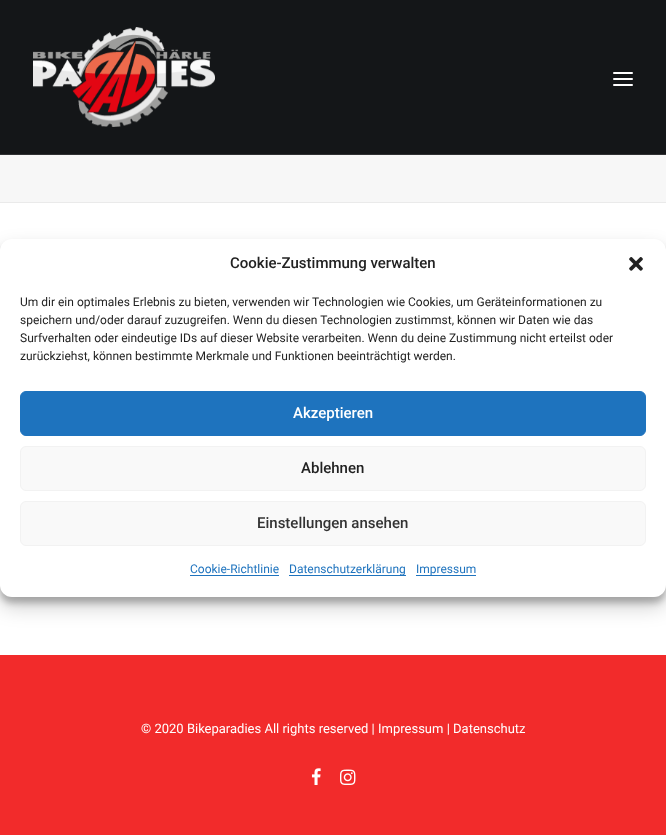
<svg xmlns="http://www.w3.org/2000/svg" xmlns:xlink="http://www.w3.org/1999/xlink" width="666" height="835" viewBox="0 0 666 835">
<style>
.cls-1{font:500 15px Roboto;fill:#222222}
.cls-2{font:12px Roboto;fill:#222222}
.cls-3{font:500 15px Roboto;fill:#ffffff}
.cls-4{font:500 15px Roboto;fill:#333333}
.cls-5{font:12px Roboto;fill:#1e73be}
.cls-6{font:13px Roboto;fill:#ffffff}
</style>
<rect width="100%" height="100%" fill="#f7f7f7"/>
<rect fill="#ffffff" x="0" y="203" width="666" height="452"/>
<rect fill="#000000" fill-opacity="0.23" filter="blur(3px)" x="0" y="245" width="666" height="358" rx="12"/>
<rect fill="#000000" fill-opacity="0.19" filter="blur(10px)" x="0" y="249" width="666" height="358" rx="12"/>
<rect fill="#ffffff" x="0" y="239" width="666" height="358" rx="12"/>
<image xlink:href="image0.png" x="629" y="257" width="14" height="14"/>
<rect fill="#1e73be" stroke="#1e73be" x="20.5" y="391.5" width="625" height="44" rx="5.5"/>
<rect fill="#f9f9f9" stroke="#f2f2f2" x="20.5" y="446.5" width="625" height="44" rx="5.5"/>
<rect fill="#f9f9f9" stroke="#f2f2f2" x="20.5" y="501.5" width="625" height="44" rx="5.5"/>
<rect fill="#1e73be" x="190" y="575" width="89" height="1"/>
<rect fill="#1e73be" x="289" y="575" width="117" height="1"/>
<rect fill="#1e73be" x="416" y="575" width="60" height="1"/>
<rect fill="#141618" x="0" y="0" width="666" height="154"/>
<rect fill="#303133" x="0" y="154" width="666" height="1"/>
<image xlink:href="image1.png" x="33" y="27" width="182" height="100"/>
<rect fill="#ffffff" x="613" y="78" width="20" height="2" rx="1"/>
<rect fill="#ffffff" x="613" y="72" width="20" height="2" rx="1"/>
<rect fill="#ffffff" x="613" y="84" width="20" height="2" rx="1"/>
<rect fill="#eaeaea" x="0" y="202" width="666" height="1"/>
<rect fill="#f22b2b" x="0" y="655" width="666" height="180"/>
<image xlink:href="image2.png" x="311" y="768" width="10" height="17"/>
<image xlink:href="image3.png" x="340" y="769" width="16" height="16"/>
<text class="cls-1" x="230" y="268">Cookie-Zustimmung verwalten</text>
<text class="cls-2"><tspan x="20" y="306">Um dir ein optimales Erlebnis zu bieten, verwenden wir Technologien wie Cookies, um Geräteinformationen zu</tspan><tspan x="20" y="324">speichern und/oder darauf zuzugreifen. Wenn du diesen Technologien zustimmst, können wir Daten wie das</tspan><tspan x="20" y="342">Surfverhalten oder eindeutige IDs auf dieser Website verarbeiten. Wenn du deine Zustimmung nicht erteilst oder</tspan><tspan x="20" y="360">zurückziehst, können bestimmte Merkmale und Funktionen beeinträchtigt werden.</tspan></text>
<text class="cls-3" x="293" y="418">Akzeptieren</text>
<text class="cls-1" x="301" y="473">Ablehnen</text>
<text class="cls-4" x="257" y="528">Einstellungen ansehen</text>
<text class="cls-5" x="190" y="573">Cookie-Richtlinie</text>
<text class="cls-5" x="289" y="573">Datenschutzerklärung</text>
<text class="cls-5" x="416" y="573">Impressum</text>
<text class="cls-6" x="141" y="733">© 2020 Bikeparadies All rights reserved | Impressum | Datenschutz</text>
</svg>
